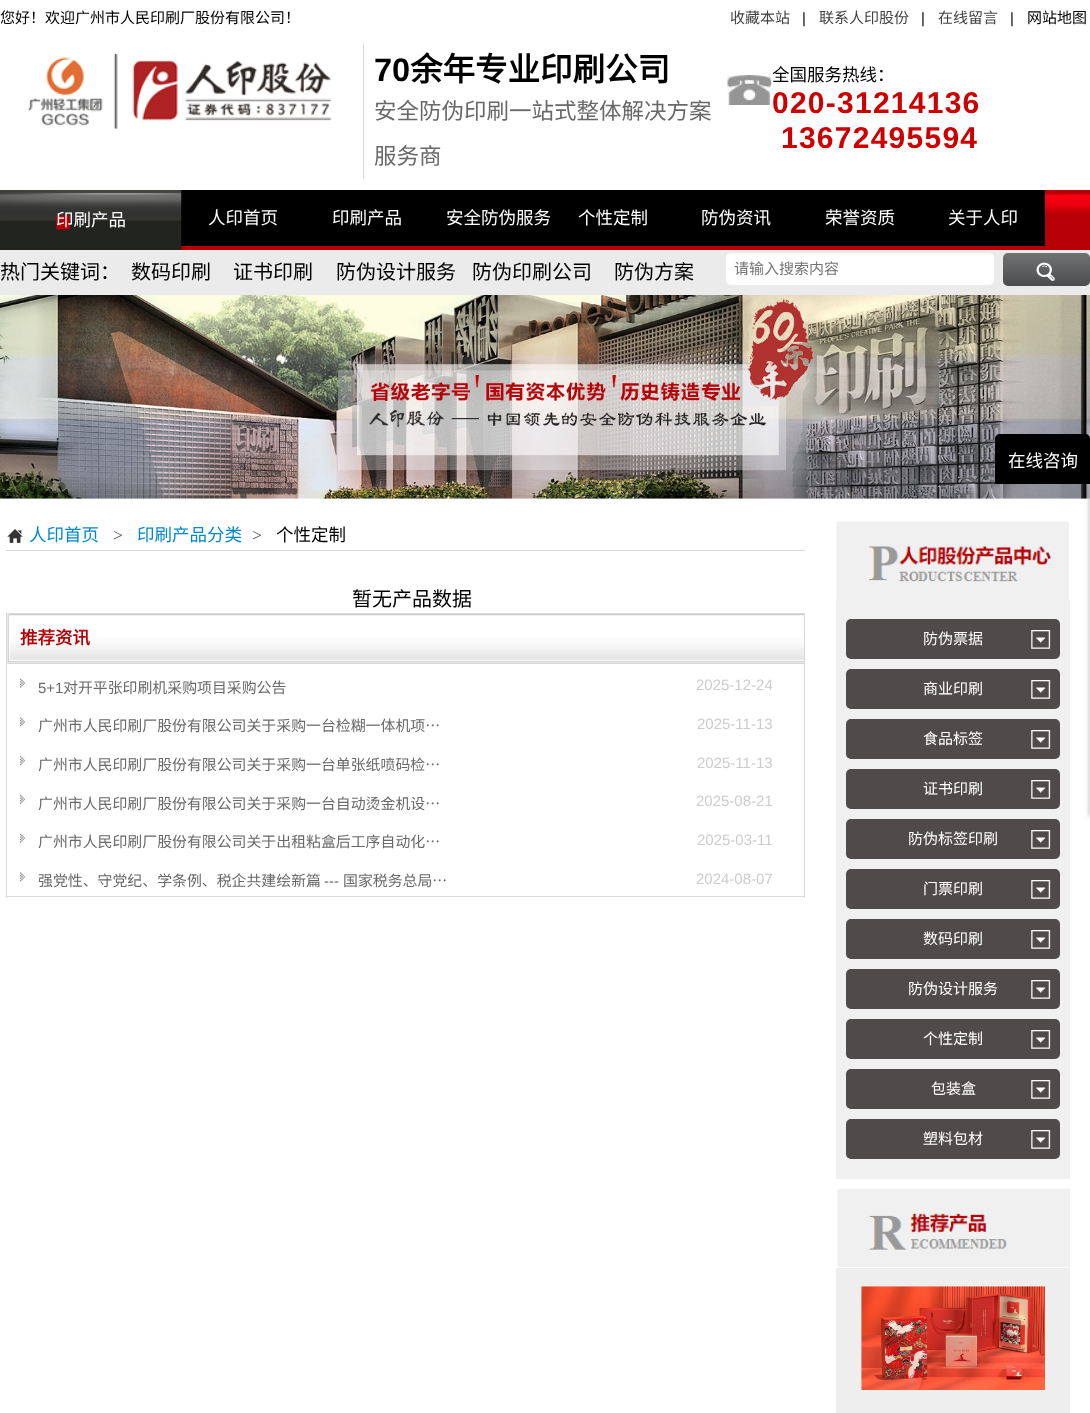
<svg xmlns="http://www.w3.org/2000/svg" xmlns:xlink="http://www.w3.org/1999/xlink" width="1090" height="1413" viewBox="0 0 1090 1413">
<style>
.cls-1{font:15px Noto Sans CJK SC;fill:#000000}
.cls-2{font:15px Noto Sans CJK SC;fill:#434343}
.cls-3{font:15px Liberation Sans;fill:#000000}
.cls-4{font:bold 32.5px Liberation Sans;fill:#000000}
.cls-5{font:bold 32.5px Noto Sans CJK SC;fill:#000000}
.cls-6{font:22.5px Noto Sans CJK SC;fill:#696969}
.cls-7{font:17.5px Noto Sans CJK SC;fill:#000000}
.cls-8{font:bold 30px Liberation Sans;letter-spacing:1.25px;fill:#cc0000}
.cls-9{font:17.5px Noto Sans CJK SC;fill:#ffffff}
.cls-10{font:20px Noto Sans CJK SC;fill:#000000}
.cls-11{font:15px Noto Sans CJK SC;fill:#757575}
.cls-12{font:17.5px Noto Sans CJK SC;fill:#0088cc}
.cls-13{font:17.5px Liberation Serif;fill:#555555}
.cls-14{font:bold 17.5px Noto Sans CJK SC;fill:#b50006}
.cls-15{font:14.9px Liberation Sans;fill:#696969}
.cls-16{font:14.9px Noto Sans CJK SC;fill:#696969}
.cls-17{font:15px Liberation Sans;fill:#cccccc}
.cls-18{font:15px Noto Sans CJK SC;fill:#ffffff}
</style>
<defs>
<linearGradient id="g1" gradientUnits="userSpaceOnUse" x1="1046" y1="253" x2="1046" y2="286"><stop offset="0" stop-color="#717274"/><stop offset="1" stop-color="#4b4c4d"/></linearGradient>
</defs>
<rect width="100%" height="100%" fill="#ebebeb"/>
<rect fill="#ffffff" x="0" y="0" width="1090" height="190"/>
<rect fill="#d9d9d9" x="363" y="43" width="1" height="136"/>
<image xlink:href="image0.png" x="28" y="53" width="304" height="76"/>
<image xlink:href="image1.png" x="727" y="75" width="45" height="30"/>
<rect fill="#ffffff" x="0" y="498" width="1090" height="915"/>
<image xlink:href="image5.png" x="0" y="295" width="1090" height="204"/>
<rect fill="#c5c5c5" filter="blur(2px)" x="1089" y="424" width="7" height="392"/>
<path fill="#000000" d="M1000 434H1085C1088 434 1090 436 1090 439V484H995V439C995 436 997 434 1000 434Z"/>
<image xlink:href="image2.png" x="181" y="190" width="909" height="60"/>
<rect fill="#000000" x="181" y="190" width="864" height="56"/>
<image xlink:href="image3.png" x="0" y="190" width="182" height="60"/>
<rect fill="#ffffff" x="726" y="253" width="268" height="32" rx="5"/>
<rect fill="url(#g1)" x="1003" y="253" width="87" height="33" rx="5"/>
<image xlink:href="image4.png" x="1036" y="262" width="19" height="19"/>
<rect fill="#d9d9d9" x="6" y="550" width="799" height="1"/>
<image xlink:href="image6.png" x="7" y="529" width="16" height="14"/>
<image xlink:href="image7.png" x="7" y="614" width="797" height="49"/>
<rect fill="none" stroke="#d9d9d9" x="6.5" y="613.5" width="798" height="50"/>
<rect fill="#d9d9d9" x="804" y="664" width="1" height="234"/>
<rect fill="#d9d9d9" x="6" y="896" width="799" height="1"/>
<rect fill="#d9d9d9" x="6" y="664" width="1" height="234"/>
<image xlink:href="image8.png" x="20" y="678" width="5" height="10"/>
<image xlink:href="image9.png" x="20" y="717" width="5" height="10"/>
<image xlink:href="image10.png" x="20" y="756" width="5" height="9"/>
<image xlink:href="image11.png" x="20" y="795" width="5" height="9"/>
<image xlink:href="image8.png" x="20" y="833" width="5" height="10"/>
<image xlink:href="image9.png" x="20" y="872" width="5" height="10"/>
<image xlink:href="image12.png" x="836" y="521" width="233" height="79"/>
<rect fill="#f0f0f0" x="836" y="600" width="234" height="579"/>
<rect fill="#504b4b" x="846" y="619" width="214" height="40" rx="5"/>
<image xlink:href="image13.png" x="1031" y="630" width="20" height="19"/>
<rect fill="#504b4b" x="846" y="669" width="214" height="40" rx="5"/>
<image xlink:href="image13.png" x="1031" y="680" width="20" height="19"/>
<rect fill="#504b4b" x="846" y="719" width="214" height="40" rx="5"/>
<image xlink:href="image13.png" x="1031" y="730" width="20" height="19"/>
<rect fill="#504b4b" x="846" y="769" width="214" height="40" rx="5"/>
<image xlink:href="image14.png" x="1031" y="780" width="20" height="19"/>
<rect fill="#504b4b" x="846" y="819" width="214" height="40" rx="5"/>
<image xlink:href="image13.png" x="1031" y="830" width="20" height="19"/>
<rect fill="#504b4b" x="846" y="869" width="214" height="40" rx="5"/>
<image xlink:href="image13.png" x="1031" y="880" width="20" height="19"/>
<rect fill="#504b4b" x="846" y="919" width="214" height="40" rx="5"/>
<image xlink:href="image13.png" x="1031" y="930" width="20" height="19"/>
<rect fill="#504b4b" x="846" y="969" width="214" height="40" rx="5"/>
<image xlink:href="image13.png" x="1031" y="980" width="20" height="19"/>
<rect fill="#504b4b" x="846" y="1019" width="214" height="40" rx="5"/>
<image xlink:href="image13.png" x="1031" y="1030" width="20" height="19"/>
<rect fill="#504b4b" x="846" y="1069" width="214" height="40" rx="5"/>
<image xlink:href="image13.png" x="1031" y="1080" width="20" height="19"/>
<rect fill="#504b4b" x="846" y="1119" width="214" height="40" rx="5"/>
<image xlink:href="image13.png" x="1031" y="1130" width="20" height="19"/>
<image xlink:href="image15.png" x="837" y="1188" width="233" height="80"/>
<rect fill="#eeeeee" x="836" y="1268" width="234" height="145"/>
<image xlink:href="image16.png" x="861" y="1286" width="184" height="104"/>
<text class="cls-1" x="0" y="23">您好！欢迎广州市人民印刷厂股份有限公司！</text>
<text class="cls-2" x="730" y="23">收藏本站</text>
<text class="cls-3" x="802" y="23">|</text>
<text class="cls-2" x="819" y="23">联系人印股份</text>
<text class="cls-3" x="921" y="23">|</text>
<text class="cls-2" x="938" y="23">在线留言</text>
<text class="cls-3" x="1010" y="23">|</text>
<text class="cls-1" x="1027" y="23">网站地图</text>
<text class="cls-4" x="374" y="81">70</text>
<text class="cls-5" x="410" y="81">余年专业印刷公司</text>
<text class="cls-6" x="374" y="119">安全防伪印刷一站式整体解决方案</text>
<text class="cls-6" x="374" y="164">服务商</text>
<text class="cls-7" x="772" y="81">全国服务热线：</text>
<text class="cls-8" x="772" y="113">020-31214136</text>
<text class="cls-8" x="781" y="148">13672495594</text>
<text class="cls-9" x="1008" y="467">在线咨询</text>
<text class="cls-9" x="56" y="226">印刷产品</text>
<text class="cls-9" x="208" y="224">人印首页</text>
<text class="cls-9" x="332" y="224">印刷产品</text>
<text class="cls-9" x="446" y="224">安全防伪服务</text>
<text class="cls-9" x="578" y="224">个性定制</text>
<text class="cls-9" x="701" y="224">防伪资讯</text>
<text class="cls-9" x="825" y="224">荣誉资质</text>
<text class="cls-9" x="948" y="224">关于人印</text>
<text class="cls-10" x="0" y="279">热门关键词：</text>
<text class="cls-10" x="131" y="279">数码印刷</text>
<text class="cls-10" x="233" y="279">证书印刷</text>
<text class="cls-10" x="336" y="279">防伪设计服务</text>
<text class="cls-10" x="472" y="279">防伪印刷公司</text>
<text class="cls-10" x="614" y="279">防伪方案</text>
<text class="cls-11" x="734" y="274">请输入搜索内容</text>
<text class="cls-12" x="29" y="541">人印首页</text>
<text class="cls-13" x="113" y="541">&gt;</text>
<text class="cls-12" x="137" y="541">印刷产品分类</text>
<text class="cls-13" x="252" y="541">&gt;</text>
<text class="cls-7" x="276" y="541">个性定制</text>
<text class="cls-10" x="352" y="606">暂无产品数据</text>
<text class="cls-14" x="20" y="644">推荐资讯</text>
<text class="cls-15" x="38" y="693">5+1</text>
<text class="cls-16" x="63" y="693">对开平张印刷机采购项目采购公告</text>
<text class="cls-17" x="696" y="690">2025-12-24</text>
<text class="cls-16" x="38" y="731">广州市人民印刷厂股份有限公司关于采购一台检糊一体机项…</text>
<text class="cls-17" x="697" y="729">2025-11-13</text>
<text class="cls-16" x="38" y="770">广州市人民印刷厂股份有限公司关于采购一台单张纸喷码检…</text>
<text class="cls-17" x="697" y="768">2025-11-13</text>
<text class="cls-16" x="38" y="809">广州市人民印刷厂股份有限公司关于采购一台自动烫金机设…</text>
<text class="cls-17" x="696" y="806">2025-08-21</text>
<text class="cls-16" x="38" y="847">广州市人民印刷厂股份有限公司关于出租粘盒后工序自动化…</text>
<text class="cls-17" x="697" y="845">2025-03-11</text>
<text class="cls-16" x="38" y="886">强党性、守党纪、学条例、税企共建绘新篇</text>
<text class="cls-15" x="324" y="886">---</text>
<text class="cls-16" x="343" y="886">国家税务总局…</text>
<text class="cls-17" x="696" y="884">2024-08-07</text>
<text class="cls-18" x="923" y="644">防伪票据</text>
<text class="cls-18" x="923" y="694">商业印刷</text>
<text class="cls-18" x="923" y="744">食品标签</text>
<text class="cls-18" x="923" y="794">证书印刷</text>
<text class="cls-18" x="908" y="844">防伪标签印刷</text>
<text class="cls-18" x="923" y="894">门票印刷</text>
<text class="cls-18" x="923" y="944">数码印刷</text>
<text class="cls-18" x="908" y="994">防伪设计服务</text>
<text class="cls-18" x="923" y="1044">个性定制</text>
<text class="cls-18" x="931" y="1094">包装盒</text>
<text class="cls-18" x="923" y="1144">塑料包材</text>
</svg>
